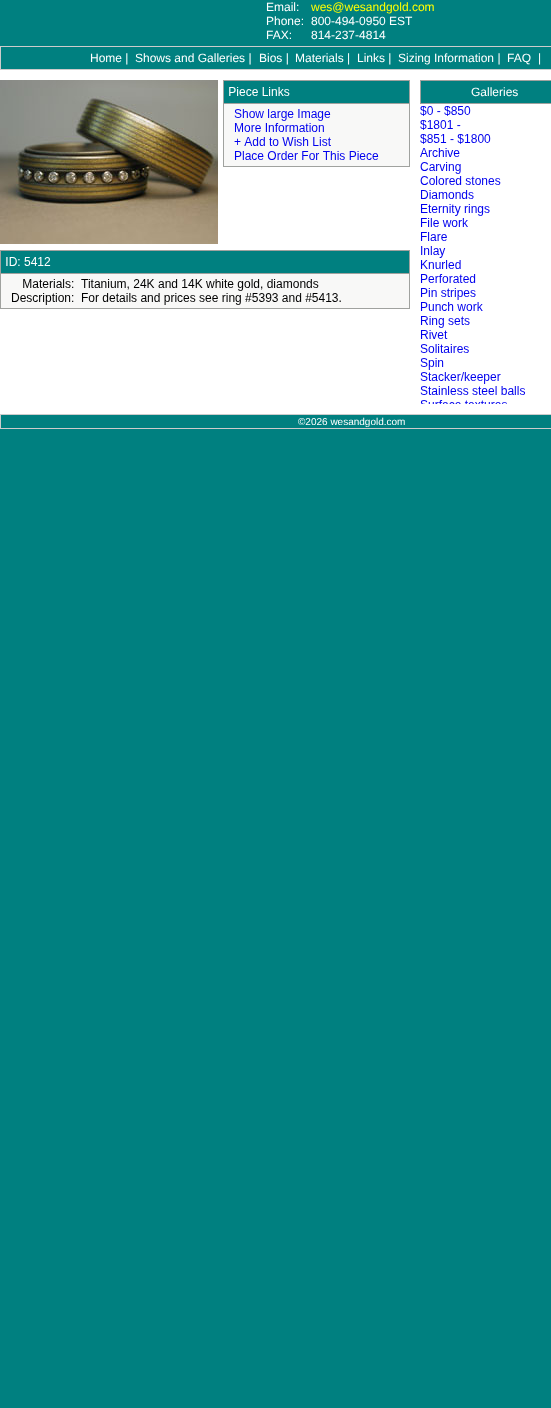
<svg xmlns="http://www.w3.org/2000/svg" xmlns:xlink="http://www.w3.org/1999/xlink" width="551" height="1408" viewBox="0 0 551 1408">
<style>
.cls-1{font:12px Liberation Sans;fill:#ffffff}
.cls-2{font:12px Liberation Sans;fill:#ffff00}
.cls-3{font:10px Liberation Sans;fill:#ffffff}
</style>
<rect width="100%" height="100%" fill="#008080"/>
<rect fill="none" stroke="#cccccc" x="0.5" y="46.5" width="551" height="23"/>
<rect fill="#ffffff" x="0" y="70" width="551" height="344"/>
<image xlink:href="image0.png" x="0" y="80" width="410" height="229"/>
<rect fill="none" stroke="#a0a29f" x="420.5" y="80.5" width="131" height="23"/>
<rect fill="#008080" x="421" y="81" width="130" height="22"/>
<image xlink:href="image1.png" x="420" y="106" width="106" height="298"/>
<rect fill="none" stroke="#cccccc" x="0.5" y="414.5" width="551" height="14"/>
<text class="cls-1" x="266" y="11">Email:</text>
<text class="cls-2" x="311" y="11">wes@wesandgold.com</text>
<text class="cls-1" x="266" y="25">Phone:</text>
<text class="cls-1" x="311" y="25">800-494-0950 EST</text>
<text class="cls-1" x="266" y="39">FAX:</text>
<text class="cls-1" x="311" y="39">814-237-4814</text>
<text class="cls-1" x="90" y="62">Home |</text>
<text class="cls-1" x="135" y="62">Shows and Galleries |</text>
<text class="cls-1" x="259" y="62">Bios |</text>
<text class="cls-1" x="295" y="62">Materials |</text>
<text class="cls-1" x="357" y="62">Links |</text>
<text class="cls-1" x="398" y="62">Sizing Information |</text>
<text class="cls-1" x="507" y="62">FAQ</text>
<text class="cls-1" x="538" y="62">|</text>
<text class="cls-1" x="471" y="96">Galleries</text>
<text class="cls-3" x="298" y="425">©2026 wesandgold.com</text>
</svg>
